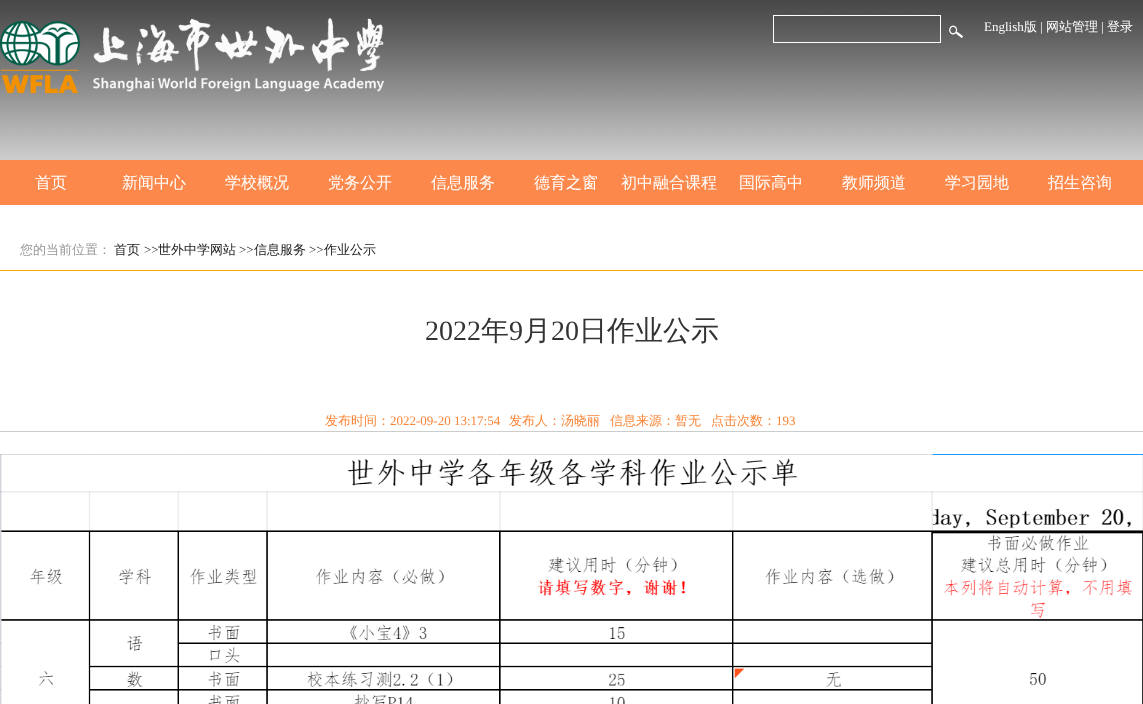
<svg xmlns="http://www.w3.org/2000/svg" xmlns:xlink="http://www.w3.org/1999/xlink" width="1143" height="704" viewBox="0 0 1143 704">
<style>
.cls-1{font:13px Liberation Serif;fill:#ffffff}
.cls-2{font:500 13px WenQuanYi Zen Hei;fill:#ffffff}
.cls-3{font:500 16px WenQuanYi Zen Hei;fill:#ffffff}
.cls-4{font:500 13px WenQuanYi Zen Hei;fill:#999999}
.cls-5{font:500 13px WenQuanYi Zen Hei;fill:#222222}
.cls-6{font:13px Liberation Serif;fill:#222222}
.cls-7{font:28px Liberation Serif;fill:#333333}
.cls-8{font:500 28px WenQuanYi Zen Hei;fill:#333333}
.cls-9{font:500 13px WenQuanYi Zen Hei;fill:#f98435}
.cls-10{font:13px Liberation Serif;fill:#f98435}
</style>
<rect width="100%" height="100%" fill="#ffffff"/>
<image xlink:href="image0.png" x="0" y="0" width="1143" height="160"/>
<image xlink:href="image1.png" x="0" y="18" width="384" height="76"/>
<rect fill="none" stroke="#ffffff" x="773.5" y="15.5" width="167" height="27"/>
<image xlink:href="image2.png" x="949" y="25" width="14" height="13"/>
<rect fill="#fc894b" x="0" y="160" width="1143" height="45"/>
<rect fill="#ffa500" x="0" y="270" width="1143" height="1"/>
<rect fill="#cccccc" x="0" y="431" width="1143" height="1"/>
<image xlink:href="image3.png" x="0" y="454" width="1143" height="250"/>
<text class="cls-1" x="984" y="31">English</text>
<text class="cls-2" x="1024" y="31">版</text>
<text class="cls-1" x="1040" y="31">|</text>
<text class="cls-2" x="1046" y="31">网站管理</text>
<text class="cls-1" x="1101" y="31">|</text>
<text class="cls-2" x="1107" y="31">登录</text>
<text class="cls-3" x="35" y="188">首页</text>
<text class="cls-3" x="122" y="188">新闻中心</text>
<text class="cls-3" x="225" y="188">学校概况</text>
<text class="cls-3" x="328" y="188">党务公开</text>
<text class="cls-3" x="431" y="188">信息服务</text>
<text class="cls-3" x="534" y="188">德育之窗</text>
<text class="cls-3" x="621" y="188">初中融合课程</text>
<text class="cls-3" x="739" y="188">国际高中</text>
<text class="cls-3" x="842" y="188">教师频道</text>
<text class="cls-3" x="945" y="188">学习园地</text>
<text class="cls-3" x="1048" y="188">招生咨询</text>
<text class="cls-4" x="20" y="254">您的当前位置：</text>
<text class="cls-5" x="114" y="254">首页</text>
<text class="cls-6" x="144" y="254">&gt;&gt;</text>
<text class="cls-5" x="158" y="254">世外中学网站</text>
<text class="cls-6" x="239" y="254">&gt;&gt;</text>
<text class="cls-5" x="254" y="254">信息服务</text>
<text class="cls-6" x="309" y="254">&gt;&gt;</text>
<text class="cls-5" x="324" y="254">作业公示</text>
<text class="cls-7" x="425" y="340">2022</text>
<text class="cls-8" x="481" y="340">年</text>
<text class="cls-7" x="509" y="340">9</text>
<text class="cls-8" x="523" y="340">月</text>
<text class="cls-7" x="551" y="340">20</text>
<text class="cls-8" x="579" y="340">日作业公示</text>
<text class="cls-9" x="325" y="425">发布时间：</text>
<text class="cls-10" x="390" y="425">2022-09-20 13:17:54</text>
<text class="cls-9" x="509" y="425">发布人：汤晓丽</text>
<text class="cls-9" x="610" y="425">信息来源：暂无</text>
<text class="cls-9" x="711" y="425">点击次数：</text>
<text class="cls-10" x="776" y="425">193</text>
</svg>
